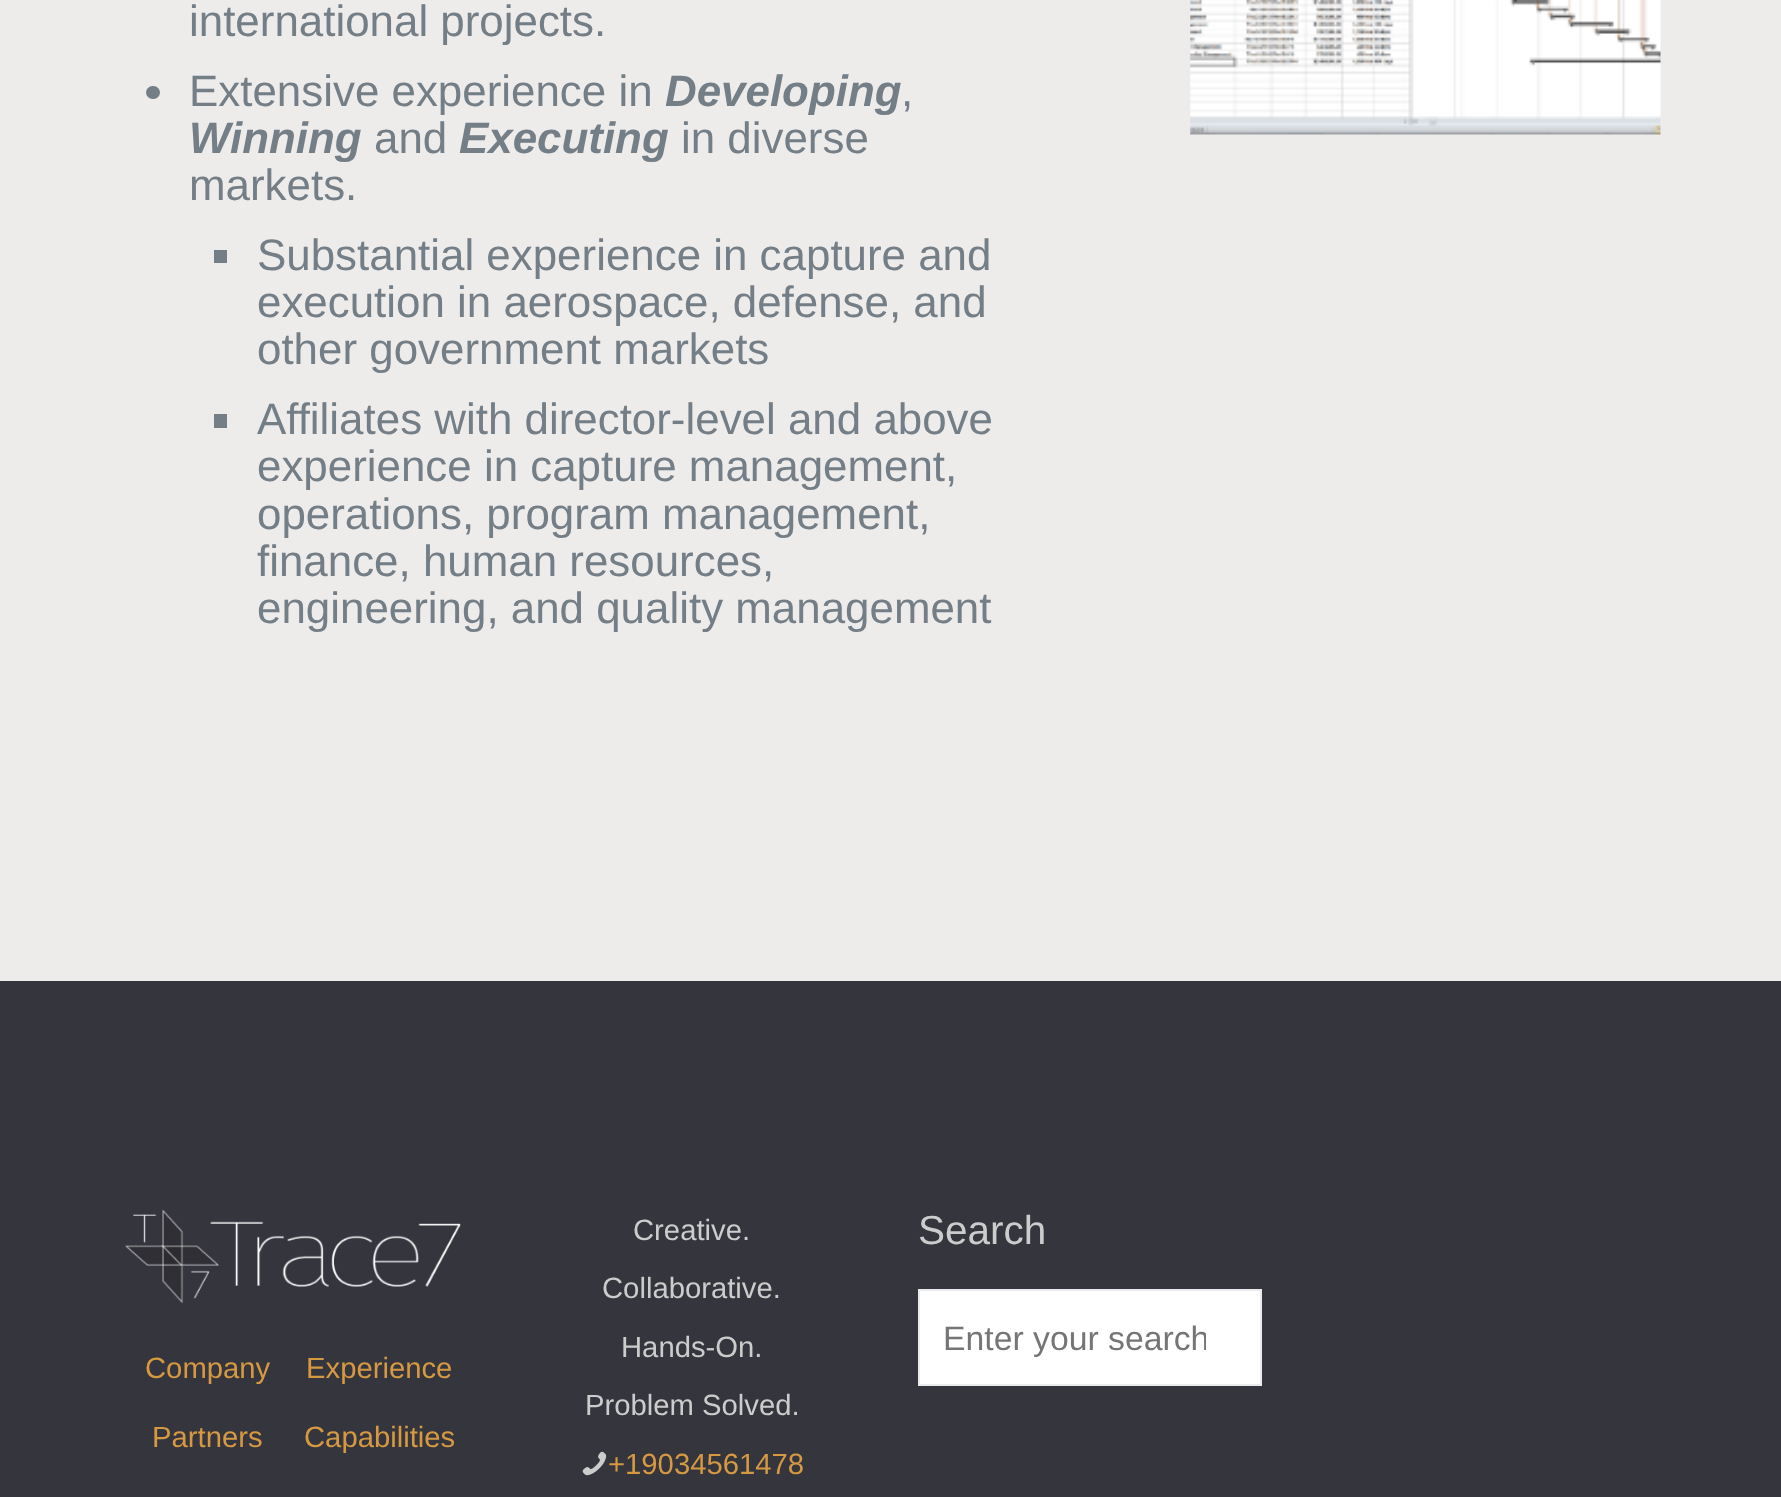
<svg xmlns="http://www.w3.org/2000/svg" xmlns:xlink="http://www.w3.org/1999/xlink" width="1781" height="1497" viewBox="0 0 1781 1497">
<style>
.cls-1{font:43.9px Liberation Sans;fill:#737e86}
.cls-2{font:italic bold 43.9px Liberation Sans;fill:#737e86}
.cls-3{font:29.25px Liberation Sans;fill:#d69942}
.cls-4{font:29.25px Liberation Sans;fill:#cccccc}
.cls-5{font:40.5px Liberation Sans;fill:#cccccc}
.cls-6{font:33.75px Liberation Sans;fill:#757575}
</style>
<defs>
<clipPath id="clip1"><rect x="943" y="1319" width="263" height="38"/></clipPath>
</defs>
<rect width="100%" height="100%" fill="#eeebeb"/>
<rect fill="#737e86" x="146" y="86" width="14" height="13" rx="6.5"/>
<rect fill="#737e86" x="214" y="250" width="13" height="13"/>
<rect fill="#737e86" x="214" y="414" width="13" height="14"/>
<image xlink:href="image0.png" x="1190" y="0" width="471" height="135"/>
<rect fill="#34353d" x="0" y="981" width="1781" height="516"/>
<image xlink:href="image1.png" x="125" y="1209" width="336" height="95"/>
<image xlink:href="image2.png" x="582" y="1451" width="25" height="25"/>
<rect fill="#ffffff" stroke="#ebebeb" stroke-width="2" x="919" y="1290" width="342" height="95"/>
<text class="cls-1"><tspan x="189" y="36">international projects.</tspan><tspan x="189" y="106">Extensive experience in</tspan></text>
<text class="cls-2" x="665" y="106">Developing</text>
<text class="cls-1" x="901" y="106">,</text>
<text class="cls-2" x="189" y="153">Winning</text>
<text class="cls-1" x="374" y="153">and</text>
<text class="cls-2" x="459" y="153">Executing</text>
<text class="cls-1" x="681" y="153">in diverse</text>
<text class="cls-1" x="189" y="200">markets.</text>
<text class="cls-1"><tspan x="257" y="270">Substantial experience in capture and</tspan><tspan x="257" y="317">execution in aerospace, defense, and</tspan><tspan x="257" y="364">other government markets</tspan><tspan x="257" y="434">Affiliates with director-level and above</tspan><tspan x="257" y="481">experience in capture management,</tspan><tspan x="257" y="529">operations, program management,</tspan><tspan x="257" y="576">finance, human resources,</tspan><tspan x="257" y="623">engineering, and quality management</tspan></text>
<text class="cls-3" x="145" y="1378">Company</text>
<text class="cls-3" x="306" y="1378">Experience</text>
<text class="cls-3" x="152" y="1447">Partners</text>
<text class="cls-3" x="304" y="1447">Capabilities</text>
<text class="cls-4" x="633" y="1240">Creative.</text>
<text class="cls-4" x="602" y="1298">Collaborative.</text>
<text class="cls-4" x="621" y="1357">Hands-On.</text>
<text class="cls-4" x="585" y="1415">Problem Solved.</text>
<text class="cls-3" x="608" y="1474">+19034561478</text>
<text class="cls-5" x="918" y="1244">Search</text>
<g clip-path="url(#clip1)">
<text class="cls-6" x="943" y="1350">Enter your search</text>
</g>
</svg>
